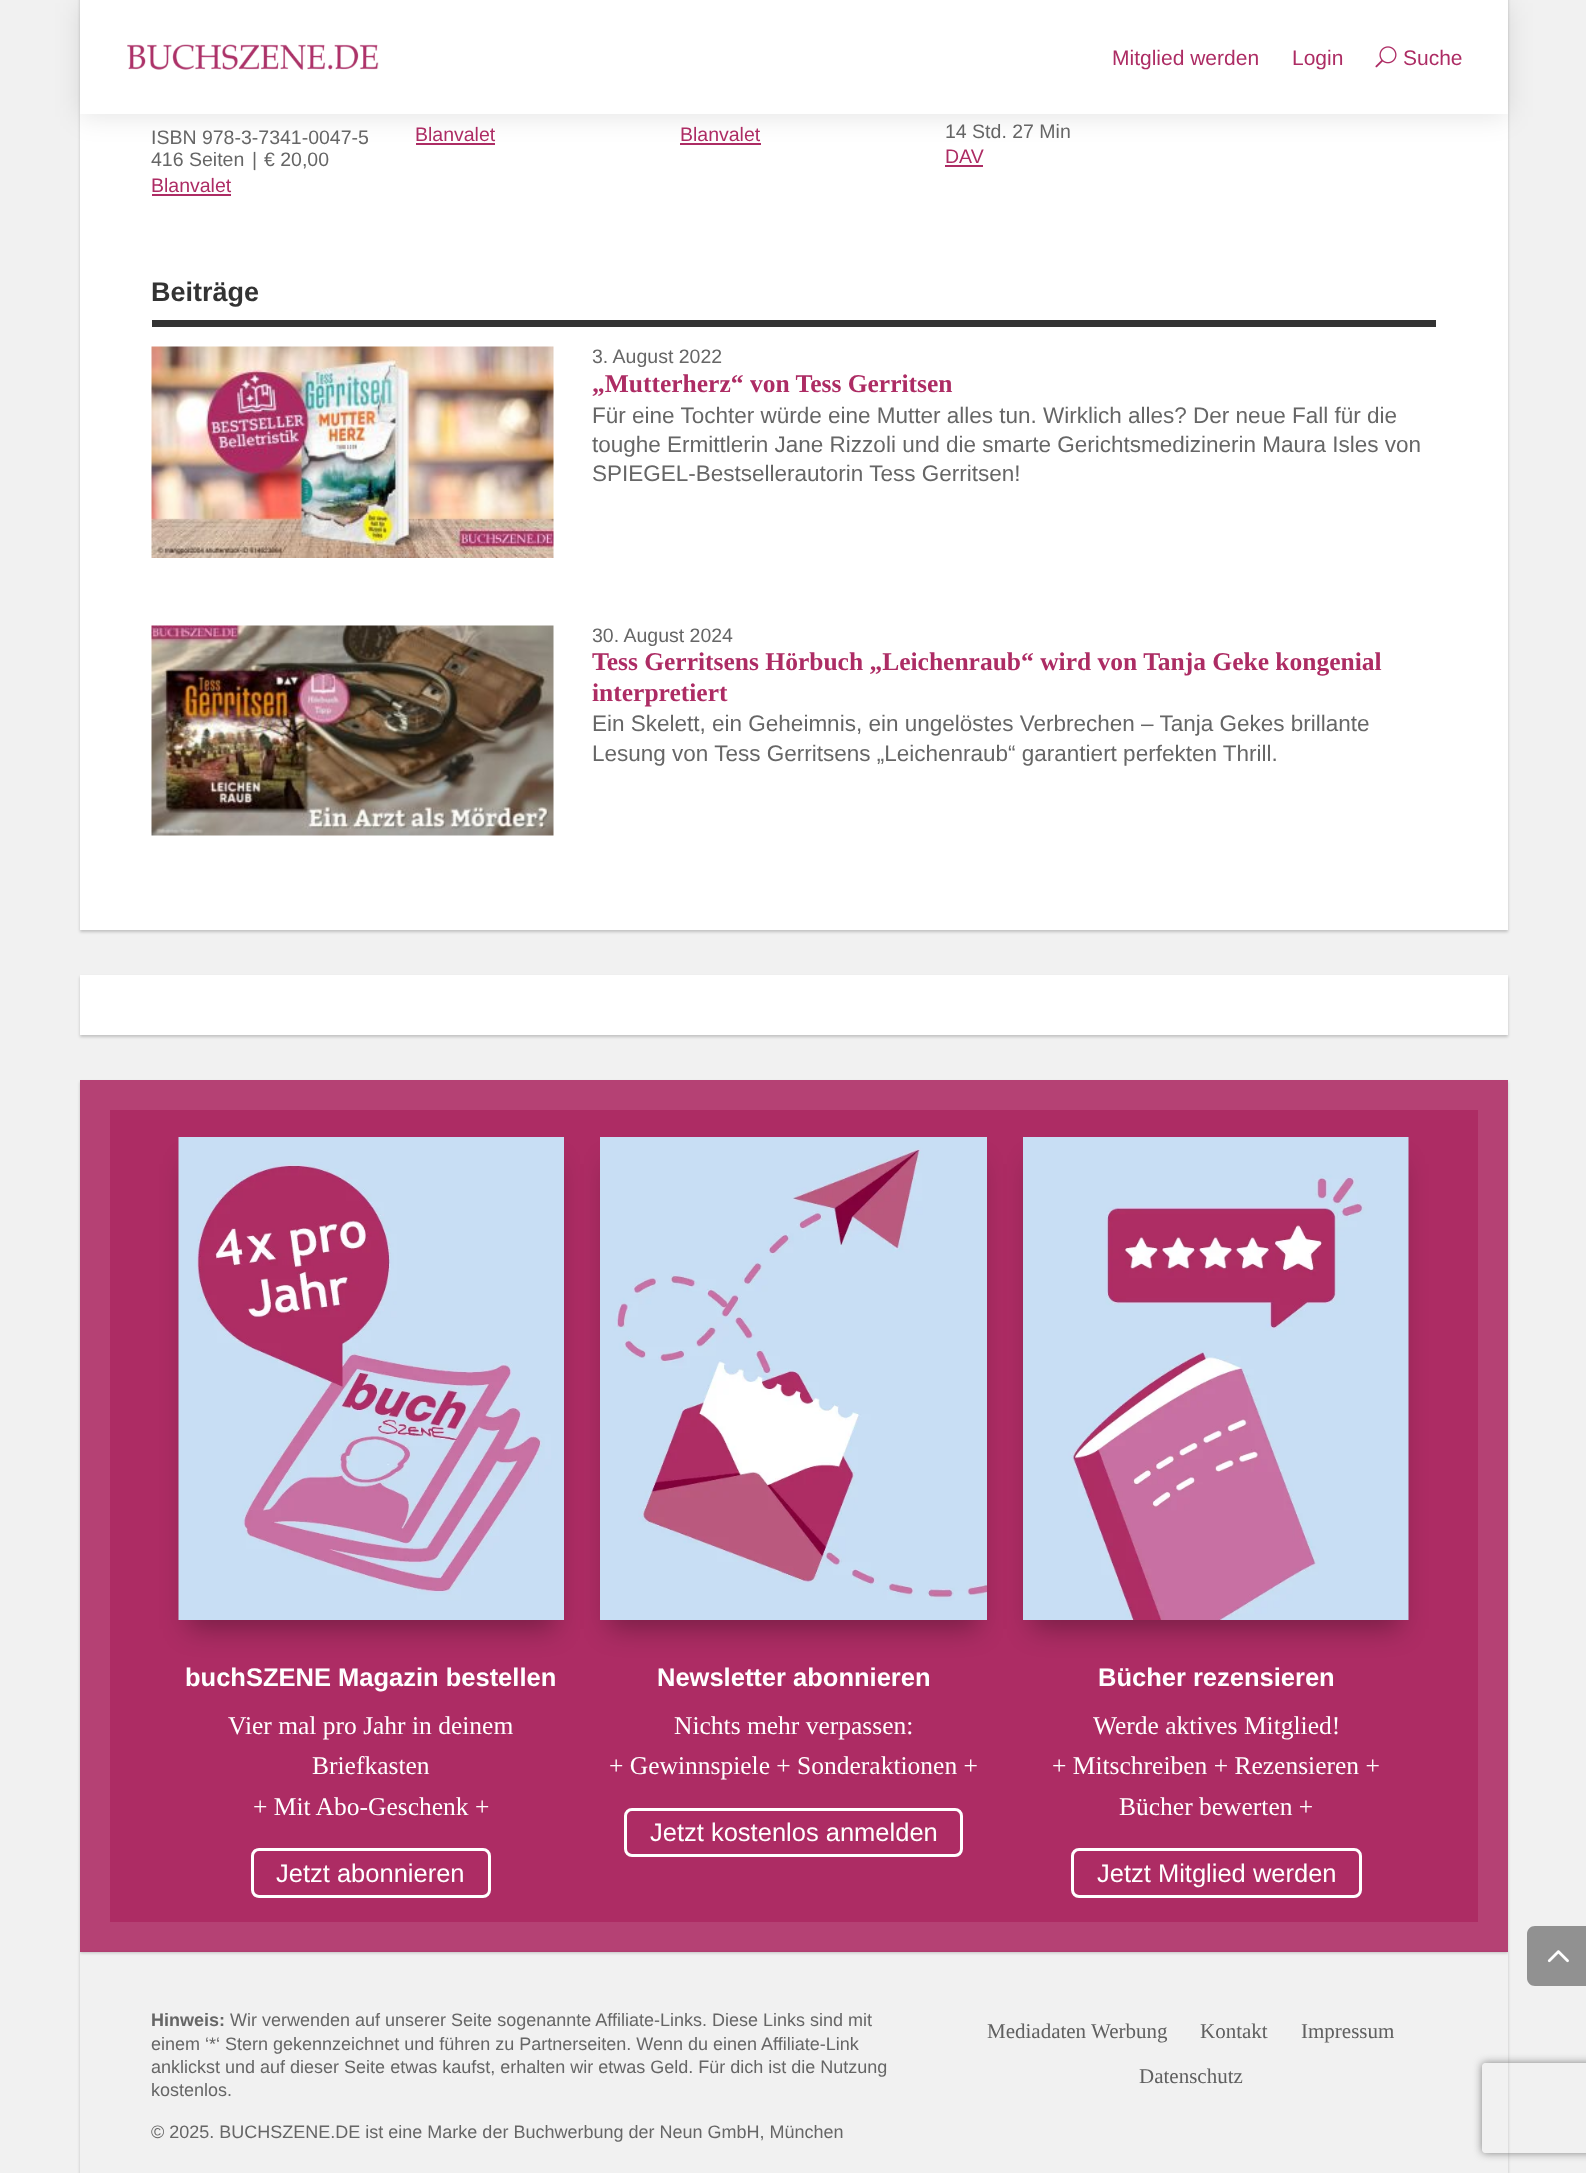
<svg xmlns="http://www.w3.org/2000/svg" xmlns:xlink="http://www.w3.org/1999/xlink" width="1586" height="2173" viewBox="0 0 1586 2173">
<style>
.cls-1{font:21px Liberation Sans;fill:#ad2c64}
.cls-2{font:19.5px Liberation Sans;fill:#666666}
.cls-3{font:19.5px Liberation Sans;fill:#ad2c64}
.cls-4{font:bold 27px Liberation Sans;fill:#333333}
.cls-5{font:bold 25.5px Liberation Serif;fill:#ad2c64}
.cls-6{font:22.5px Liberation Sans;fill:#666666}
.cls-7{font:bold 25.5px Liberation Sans;fill:#ffffff}
.cls-8{font:25.5px Liberation Serif;fill:#ffffff}
.cls-9{font:25.5px Liberation Sans;fill:#ffffff}
.cls-10{font:bold 18px Liberation Sans;fill:#666666}
.cls-11{font:18px Liberation Sans;fill:#666666}
.cls-12{font:21px Liberation Serif;fill:#606060}
</style>
<defs>
<clipPath id="clip1"><path d="M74 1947H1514V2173H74ZM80 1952H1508V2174H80Z" clip-rule="evenodd"/></clipPath>
<clipPath id="clip2"><path d="M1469 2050H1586V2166H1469ZM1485 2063H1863C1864.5 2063 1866 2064.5 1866 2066V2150C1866 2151.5 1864.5 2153 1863 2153H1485C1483.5 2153 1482 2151.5 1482 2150V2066C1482 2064.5 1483.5 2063 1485 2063Z" clip-rule="evenodd"/></clipPath>
</defs>
<rect width="100%" height="100%" fill="#f1f1f1"/>
<rect fill="#000000" fill-opacity="0.2" filter="blur(1.5px)" x="80" y="-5" width="1428" height="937"/>
<rect fill="#ffffff" x="80" y="114" width="1428" height="816"/>
<rect fill="#ad2c64" x="416" y="143" width="79" height="2"/>
<rect fill="#ad2c64" x="680" y="143" width="81" height="2"/>
<rect fill="#000000" fill-opacity="0.1" filter="blur(13.5px)" x="80" y="3" width="1428" height="114"/>
<rect fill="#ffffff" x="80" y="0" width="1428" height="114"/>
<image xlink:href="image0.png" x="127" y="44" width="252" height="26"/>
<image xlink:href="image1.png" x="1375" y="46" width="22" height="22"/>
<rect fill="#ad2c64" x="152" y="194" width="79" height="2"/>
<rect fill="#ad2c64" x="945" y="165" width="38" height="2"/>
<rect fill="#333333" x="152" y="320" width="1284" height="7"/>
<image xlink:href="image2.png" x="151" y="346" width="403" height="212"/>
<image xlink:href="image3.png" x="151" y="625" width="403" height="211"/>
<rect fill="#000000" fill-opacity="0.2" filter="blur(1.5px)" x="80" y="977" width="1428" height="60"/>
<rect fill="#ffffff" x="80" y="975" width="1428" height="60"/>
<rect fill="#000000" fill-opacity="0.2" filter="blur(1.5px)" x="80" y="1082" width="1428" height="871"/>
<rect fill="#ad2c64" stroke="#b54174" stroke-width="30" x="95" y="1095" width="1398" height="842"/>
<rect fill="#000000" fill-opacity="0.3" filter="blur(13.5px)" x="188" y="1164" width="367" height="465"/>
<image xlink:href="image4.png" x="178" y="1137" width="386" height="483"/>
<rect fill="none" stroke="#ffffff" stroke-width="3" x="252.5" y="1849.5" width="237" height="47" rx="6.5"/>
<rect fill="#000000" fill-opacity="0.3" filter="blur(13.5px)" x="609" y="1164" width="369" height="465"/>
<image xlink:href="image5.png" x="600" y="1137" width="387" height="483"/>
<rect fill="none" stroke="#ffffff" stroke-width="3" x="625.5" y="1809.5" width="336" height="46" rx="6.5"/>
<rect fill="#000000" fill-opacity="0.3" filter="blur(13.5px)" x="1032" y="1164" width="368" height="465"/>
<image xlink:href="image6.png" x="1023" y="1137" width="386" height="483"/>
<rect fill="none" stroke="#ffffff" stroke-width="3" x="1072.5" y="1849.5" width="288" height="47" rx="6.5"/>
<g clip-path="url(#clip1)">
<rect fill="#000000" fill-opacity="0.2" filter="blur(1.5px)" x="80" y="1953" width="1428" height="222"/>
</g>
<path fill="#919191" d="M1535 1926H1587V1986H1535C1530.5 1986 1527 1982.5 1527 1978V1934C1527 1929.5 1530.5 1926 1535 1926Z"/>
<image xlink:href="image7.png" x="1547" y="1950" width="22" height="13"/>
<g clip-path="url(#clip2)">
<rect fill="#808080" filter="blur(4px)" x="1482" y="2063" width="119" height="90" rx="3"/>
</g>
<text class="cls-1" x="1112" y="65">Mitglied werden</text>
<text class="cls-1" x="1292" y="65">Login</text>
<text class="cls-1" x="1403" y="65">Suche</text>
<text class="cls-2"><tspan x="151" y="144">ISBN 978-3-7341-0047-5</tspan><tspan x="151" y="166">416 Seiten</tspan></text>
<text class="cls-2" x="252" y="166">|</text>
<text class="cls-2" x="264" y="166">€ 20,00</text>
<text class="cls-3" x="151" y="192">Blanvalet</text>
<text class="cls-3" x="415" y="141">Blanvalet</text>
<text class="cls-3" x="680" y="141">Blanvalet</text>
<text class="cls-2" x="945" y="138">14 Std. 27 Min</text>
<text class="cls-3" x="945" y="163">DAV</text>
<text class="cls-4" x="151" y="301">Beiträge</text>
<text class="cls-2" x="592" y="363">3. August 2022</text>
<text class="cls-5" x="592" y="392">„Mutterherz“ von Tess Gerritsen</text>
<text class="cls-6"><tspan x="592" y="423">Für eine Tochter würde eine Mutter alles tun. Wirklich alles? Der neue Fall für die</tspan><tspan x="592" y="452">toughe Ermittlerin Jane Rizzoli und die smarte Gerichtsmedizinerin Maura Isles von</tspan><tspan x="592" y="481">SPIEGEL-Bestsellerautorin Tess Gerritsen!</tspan></text>
<text class="cls-2" x="592" y="642">30. August 2024</text>
<text class="cls-5"><tspan x="592" y="670">Tess Gerritsens Hörbuch „Leichenraub“ wird von Tanja Geke kongenial</tspan><tspan x="592" y="701">interpretiert</tspan></text>
<text class="cls-6"><tspan x="592" y="731">Ein Skelett, ein Geheimnis, ein ungelöstes Verbrechen – Tanja Gekes brillante</tspan><tspan x="592" y="761">Lesung von Tess Gerritsens „Leichenraub“ garantiert perfekten Thrill.</tspan></text>
<text class="cls-7" x="185" y="1686">buchSZENE Magazin bestellen</text>
<text class="cls-8" x="228" y="1734">Vier mal pro Jahr in deinem</text>
<text class="cls-8" x="312" y="1774">Briefkasten</text>
<text class="cls-8" x="253" y="1815">+ Mit Abo-Geschenk +</text>
<text class="cls-9" x="276" y="1882">Jetzt abonnieren</text>
<text class="cls-7" x="657" y="1686">Newsletter abonnieren</text>
<text class="cls-8" x="674" y="1734">Nichts mehr verpassen:</text>
<text class="cls-8" x="609" y="1774">+ Gewinnspiele + Sonderaktionen +</text>
<text class="cls-9" x="650" y="1841">Jetzt kostenlos anmelden</text>
<text class="cls-7" x="1098" y="1686">Bücher rezensieren</text>
<text class="cls-8" x="1093" y="1734">Werde aktives Mitglied!</text>
<text class="cls-8" x="1052" y="1774">+ Mitschreiben + Rezensieren +</text>
<text class="cls-8" x="1119" y="1815">Bücher bewerten +</text>
<text class="cls-9" x="1097" y="1882">Jetzt Mitglied werden</text>
<text class="cls-10" x="151" y="2026">Hinweis:</text>
<text class="cls-11" x="230" y="2026">Wir verwenden auf unserer Seite sogenannte Affiliate-Links. Diese Links sind mit</text>
<text class="cls-11"><tspan x="151" y="2050">einem ‘*‘ Stern gekennzeichnet und führen zu Partnerseiten. Wenn du einen Affiliate-Link</tspan><tspan x="151" y="2073">anklickst und auf dieser Seite etwas kaufst, erhalten wir etwas Geld. Für dich ist die Nutzung</tspan><tspan x="151" y="2096">kostenlos.</tspan></text>
<text class="cls-11" x="151" y="2138">© 2025. BUCHSZENE.DE ist eine Marke der Buchwerbung der Neun GmbH, München</text>
<text class="cls-12" x="987" y="2038">Mediadaten Werbung</text>
<text class="cls-12" x="1200" y="2038">Kontakt</text>
<text class="cls-12" x="1301" y="2038">Impressum</text>
<text class="cls-12" x="1139" y="2083">Datenschutz</text>
</svg>
